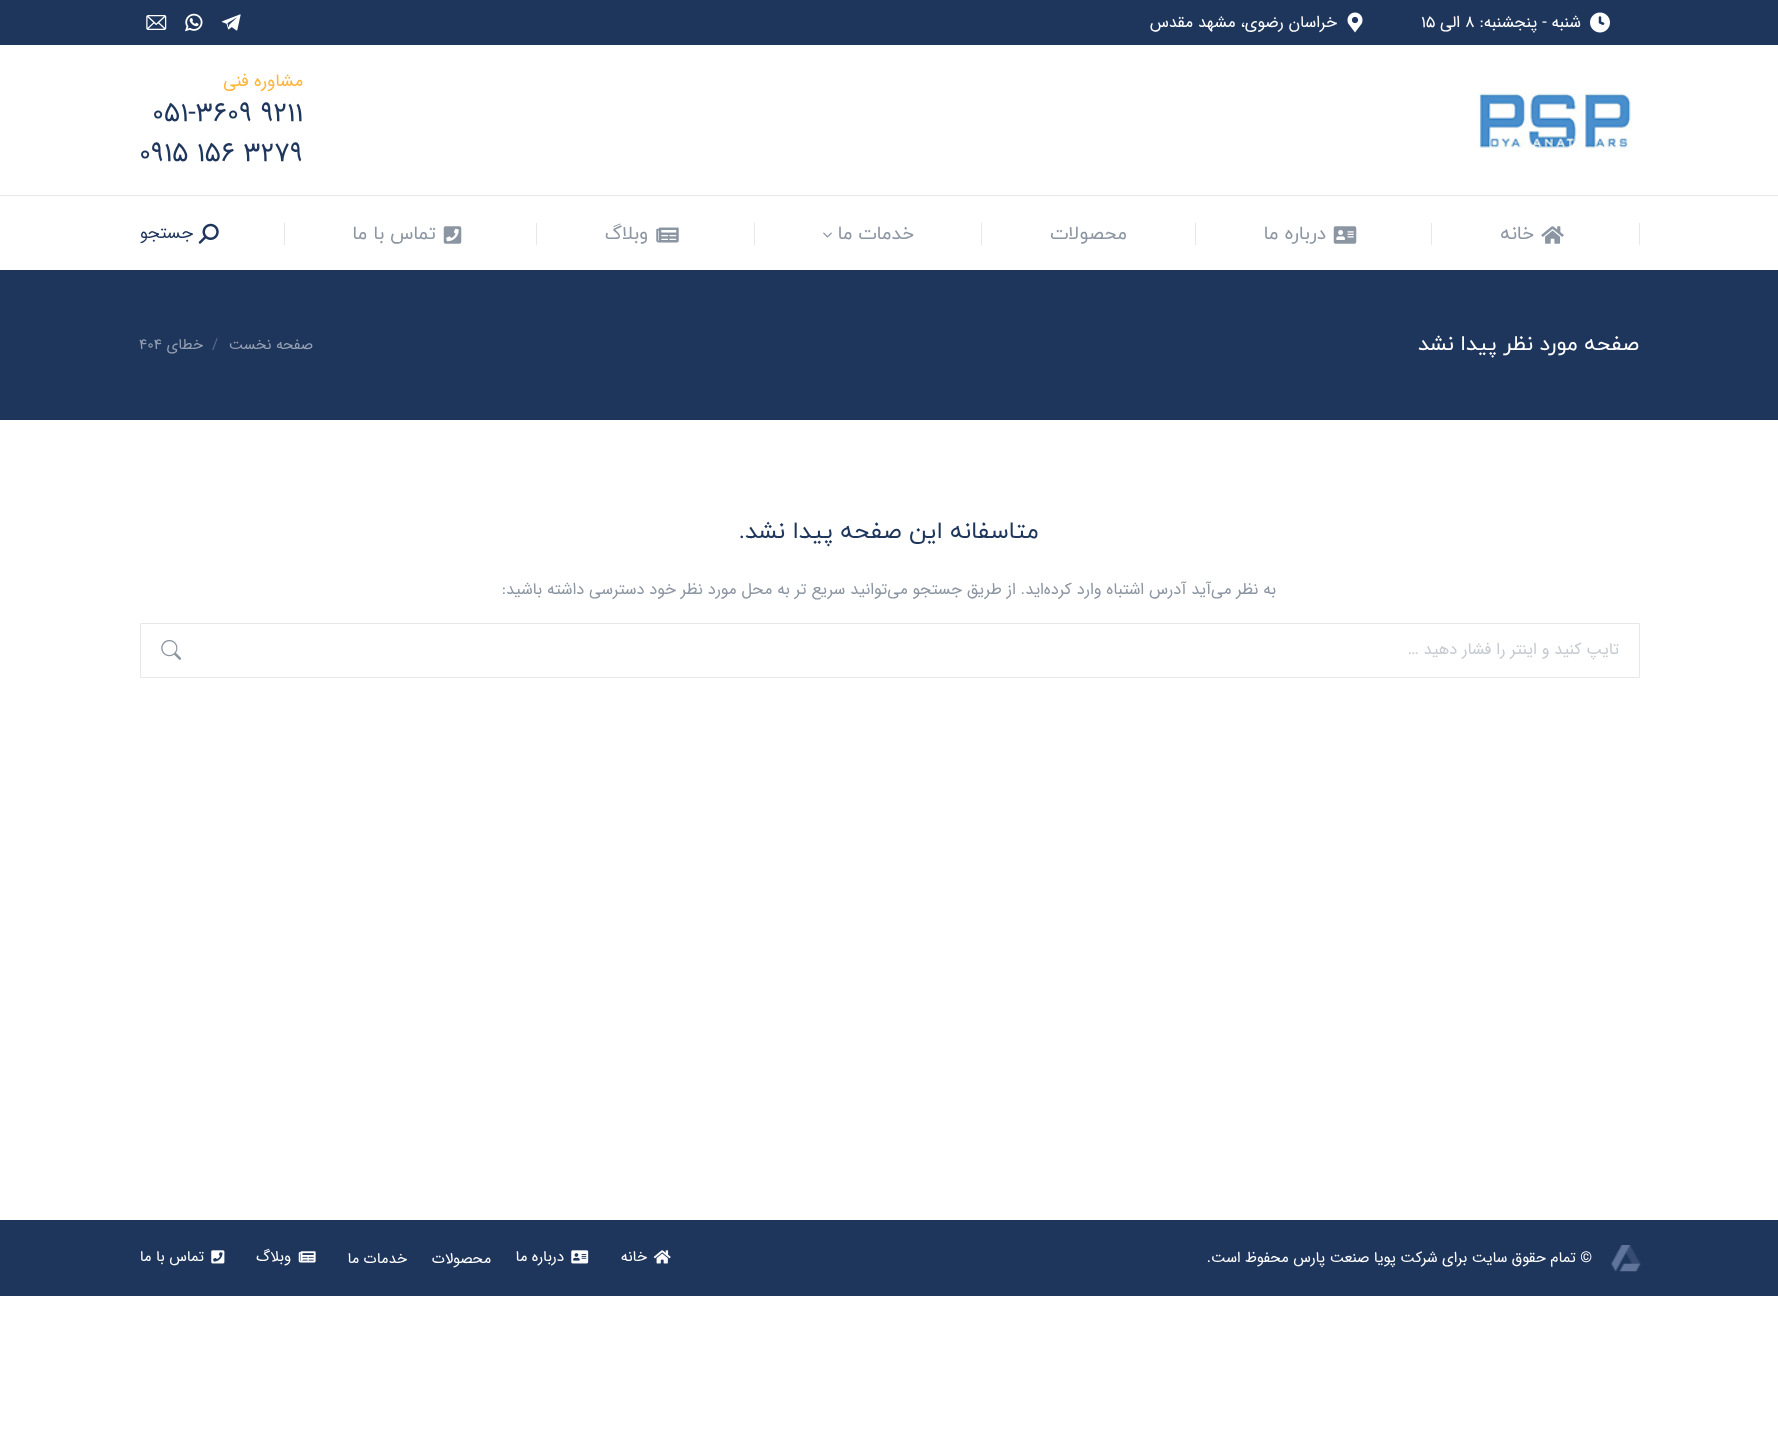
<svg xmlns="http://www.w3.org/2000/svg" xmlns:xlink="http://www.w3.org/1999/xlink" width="1778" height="1440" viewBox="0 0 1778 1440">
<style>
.cls-1{font:16.25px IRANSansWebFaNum;direction:rtl;fill:#ffffff}
.cls-2{font:16.25px IRANSansWebFaNum;fill:#ffffff}
.cls-3{font:17.5px IRANSansWebFaNum;direction:rtl;fill:#ffb536}
.cls-4{font:27.5px IRANSansWebFaNum;fill:#1f365c}
.cls-5{font:18.75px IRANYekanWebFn;direction:rtl;fill:#8c95a2}
.cls-6{font:17.5px IRANSansWebFaNum;direction:rtl;fill:#1f365c}
.cls-7{font:21.25px IRANYekanWebFn;direction:rtl;fill:#ffffff}
.cls-8{font:15px IRANSansWebFaNum;direction:rtl;fill:#949fb2}
.cls-9{font:15px IRANSansWebFaNum;fill:#5a6b87}
.cls-10{font:15px IRANSansWebFaNum;fill:#949fb2}
.cls-11{font:23.75px IRANYekanWebFn;direction:rtl;fill:#1f365c}
.cls-12{font:16.25px IRANSansWebFaNum;direction:rtl;fill:#8c95a2}
.cls-13{font:16.25px IRANSansWebFaNum;direction:rtl;fill:#c6cad1}
.cls-14{font:15px IRANSansWebFaNum;direction:rtl;fill:#ffffff}
</style>
<rect width="100%" height="100%" fill="#ffffff"/>
<rect fill="#1f365c" x="0" y="0" width="1778" height="45"/>
<image xlink:href="image0.png" x="1590" y="12" width="20" height="21"/>
<image xlink:href="image1.png" x="1347" y="12" width="16" height="21"/>
<image xlink:href="image2.png" x="221" y="14" width="20" height="17"/>
<image xlink:href="image3.png" x="185" y="13" width="18" height="19"/>
<image xlink:href="image4.png" x="146" y="15" width="21" height="15"/>
<image xlink:href="image5.png" x="1478" y="93" width="154" height="55"/>
<rect fill="#e7e7e7" x="0" y="195" width="1778" height="1"/>
<rect fill="#e7e7e7" x="1639" y="223" width="1" height="22"/>
<image xlink:href="image6.png" x="1541" y="226" width="23" height="18"/>
<rect fill="#e7e7e7" x="1431" y="223" width="1" height="22"/>
<image xlink:href="image7.png" x="1333" y="226" width="24" height="18"/>
<rect fill="#e7e7e7" x="1195" y="223" width="1" height="22"/>
<rect fill="#e7e7e7" x="981" y="223" width="1" height="22"/>
<image xlink:href="image8.png" x="823" y="232" width="9" height="6"/>
<rect fill="#e7e7e7" x="754" y="223" width="1" height="22"/>
<image xlink:href="image9.png" x="656" y="227" width="23" height="16"/>
<rect fill="#e7e7e7" x="536" y="223" width="1" height="22"/>
<image xlink:href="image10.png" x="443" y="226" width="19" height="18"/>
<rect fill="#e7e7e7" x="284" y="223" width="1" height="22"/>
<image xlink:href="image11.png" x="198" y="223" width="21" height="21"/>
<rect fill="#1f365c" x="0" y="270" width="1778" height="150"/>
<rect fill="none" stroke="#e7e7e7" x="140.5" y="623.5" width="1499" height="54" rx="0.5"/>
<image xlink:href="image12.png" x="161" y="640" width="20" height="20"/>
<rect fill="#1f365c" x="0" y="1220" width="1778" height="76"/>
<image xlink:href="image13.png" x="1611" y="1245" width="30" height="27"/>
<image xlink:href="image14.png" x="653" y="1250" width="18" height="14"/>
<image xlink:href="image15.png" x="571" y="1250" width="18" height="14"/>
<image xlink:href="image16.png" x="298" y="1251" width="18" height="12"/>
<image xlink:href="image17.png" x="211" y="1250" width="14" height="14"/>
<text class="cls-1" x="1581" y="27">شنبه - پنجشنبه:</text>
<text class="cls-2" x="1465" y="27">8</text>
<text class="cls-1" x="1460" y="27">الی</text>
<text class="cls-2" x="1421" y="27">15</text>
<text class="cls-1" x="1337" y="27">خراسان رضوی، مشهد مقدس</text>
<text class="cls-3" x="303" y="86">مشاوره فنی</text>
<text class="cls-4" x="152" y="121">051-3609 9211</text>
<text class="cls-4" x="139" y="161">0915 156 3279</text>
<text class="cls-5" x="1534" y="239">خانه</text>
<text class="cls-5" x="1326" y="239">درباره ما</text>
<text class="cls-5" x="1127" y="239">محصولات</text>
<text class="cls-5" x="914" y="239">خدمات ما</text>
<text class="cls-5" x="648" y="239">وبلاگ</text>
<text class="cls-5" x="436" y="239">تماس با ما</text>
<text class="cls-6" x="193" y="238">جستجو</text>
<text class="cls-7" x="1639" y="350">صفحه مورد نظر پیدا نشد</text>
<text class="cls-8" x="313" y="349">صفحه نخست</text>
<text class="cls-9" x="212" y="349">/</text>
<text class="cls-8" x="203" y="349">خطای</text>
<text class="cls-10" x="139" y="349">404</text>
<text class="cls-11" x="1039" y="538">متاسفانه اين صفحه پيدا نشد.</text>
<text class="cls-12" x="1276" y="594">به نظر می‌آید آدرس اشتباه وارد کرده‌اید. از طریق جستجو می‌توانید سریع ‌تر به محل مورد نظر خود دسترسی داشته باشید:</text>
<text class="cls-13" x="1619" y="654">تایپ کنید و اینتر را فشار دهید …</text>
<text class="cls-14" x="1592" y="1262">© تمام حقوق سایت برای شرکت پویا صنعت پارس محفوظ است.</text>
<text class="cls-14" x="647" y="1261">خانه</text>
<text class="cls-14" x="564" y="1261">درباره ما</text>
<text class="cls-14" x="491" y="1263">محصولات</text>
<text class="cls-14" x="407" y="1263">خدمات ما</text>
<text class="cls-14" x="291" y="1261">وبلاگ</text>
<text class="cls-14" x="204" y="1261">تماس با ما</text>
</svg>
